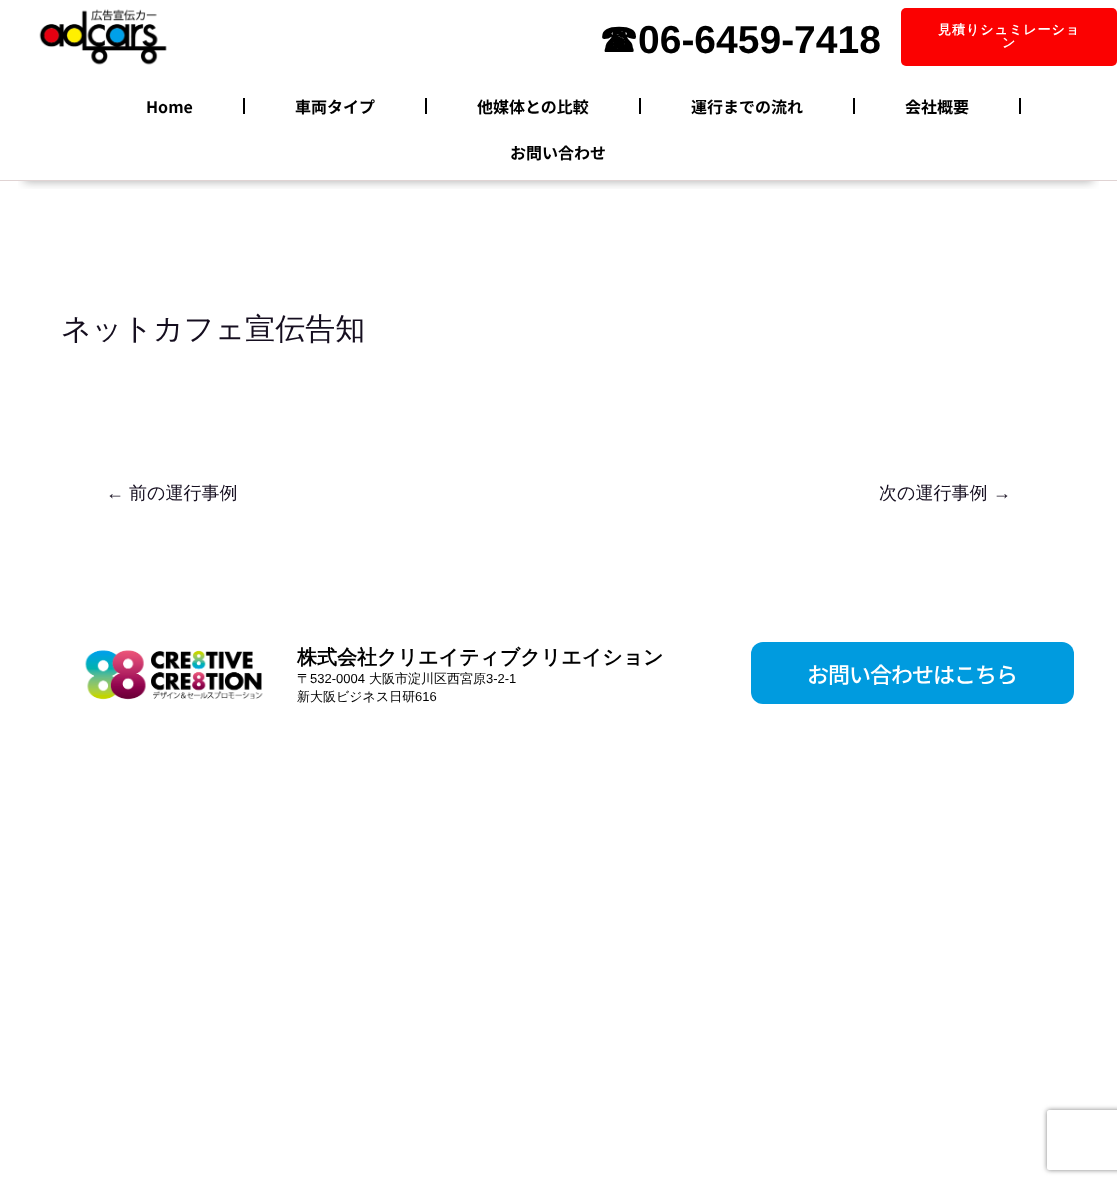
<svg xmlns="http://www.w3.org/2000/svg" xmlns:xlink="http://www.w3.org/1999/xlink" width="1117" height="1184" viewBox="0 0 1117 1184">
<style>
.cls-1{font:bold 39px WenQuanYi Zen Hei;fill:#000000}
.cls-2{font:bold 39px Liberation Sans;fill:#000000}
.cls-3{font:bold 13px WenQuanYi Zen Hei;letter-spacing:1px;fill:#ffffff}
.cls-4{font:bold 16px Noto Sans JP;fill:#000000}
.cls-5{font:500 30px WenQuanYi Zen Hei;fill:#150e1f}
.cls-6{font:18px Liberation Sans;fill:#150e1f}
.cls-7{font:500 18px WenQuanYi Zen Hei;fill:#150e1f}
.cls-8{font:bold 20px WenQuanYi Zen Hei;fill:#000000}
.cls-9{font:500 13px WenQuanYi Zen Hei;fill:#000000}
.cls-10{font:13px Liberation Sans;fill:#000000}
.cls-11{font:500 22px Noto Sans JP;letter-spacing:-1px;fill:#ffffff}
</style>
<defs>
<clipPath id="clip1"><rect x="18" y="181" width="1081" height="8"/></clipPath>
<clipPath id="clip2"><path d="M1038 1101H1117V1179H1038ZM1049 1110H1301C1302 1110 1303 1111 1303 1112V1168C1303 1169 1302 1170 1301 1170H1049C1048 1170 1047 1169 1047 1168V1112C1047 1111 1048 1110 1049 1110Z" clip-rule="evenodd"/></clipPath>
</defs>
<rect width="100%" height="100%" fill="#ffffff"/>
<image xlink:href="image0.png" x="39" y="9" width="128" height="56"/>
<rect fill="#fb0101" x="901" y="8" width="216" height="58" rx="5"/>
<g clip-path="url(#clip1)">
<rect fill="#000000" fill-opacity="0.29" filter="blur(5px)" x="24" y="127" width="1069" height="55"/>
</g>
<rect fill="#e0d3d3" x="0" y="180" width="1117" height="1"/>
<rect fill="#000000" x="243" y="98" width="2" height="16"/>
<rect fill="#000000" x="425" y="98" width="2" height="16"/>
<rect fill="#000000" x="639" y="98" width="2" height="16"/>
<rect fill="#000000" x="853" y="98" width="2" height="16"/>
<rect fill="#000000" x="1019" y="98" width="2" height="16"/>
<image xlink:href="image1.png" x="85" y="650" width="178" height="50"/>
<rect fill="#009bdf" x="751" y="642" width="323" height="62" rx="12"/>
<g clip-path="url(#clip2)">
<rect fill="#808080" filter="blur(2.5px)" x="1047" y="1110" width="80" height="60" rx="2"/>
</g>
<text class="cls-1" x="599" y="53">☎︎</text>
<text class="cls-2" x="638" y="53">06-6459-7418</text>
<text class="cls-3" x="938" y="34">見積りシュミレーショ</text>
<text class="cls-3" x="1002" y="47">ン</text>
<text class="cls-4" x="146" y="113">Home</text>
<text class="cls-4" x="295" y="113">車両タイプ</text>
<text class="cls-4" x="477" y="113">他媒体との比較</text>
<text class="cls-4" x="691" y="113">運行までの流れ</text>
<text class="cls-4" x="905" y="113">会社概要</text>
<text class="cls-4" x="510" y="159">お問い合わせ</text>
<text class="cls-5" x="61" y="339">ネットカフェ宣伝告知</text>
<text class="cls-6" x="106" y="499">←</text>
<text class="cls-7" x="129" y="499">前の運行事例</text>
<text class="cls-7" x="879" y="499">次の運行事例</text>
<text class="cls-6" x="993" y="499">→</text>
<text class="cls-8" x="297" y="664">株式会社クリエイティブクリエイション</text>
<text class="cls-9" x="297" y="683">〒</text>
<text class="cls-10" x="310" y="683">532-0004</text>
<text class="cls-9" x="369" y="683">大阪市淀川区西宮原</text>
<text class="cls-10" x="486" y="683">3-2-1</text>
<text class="cls-9" x="297" y="701">新大阪ビジネス日研</text>
<text class="cls-10" x="415" y="701">616</text>
<text class="cls-11" x="807" y="683">お問い合わせはこちら</text>
</svg>
